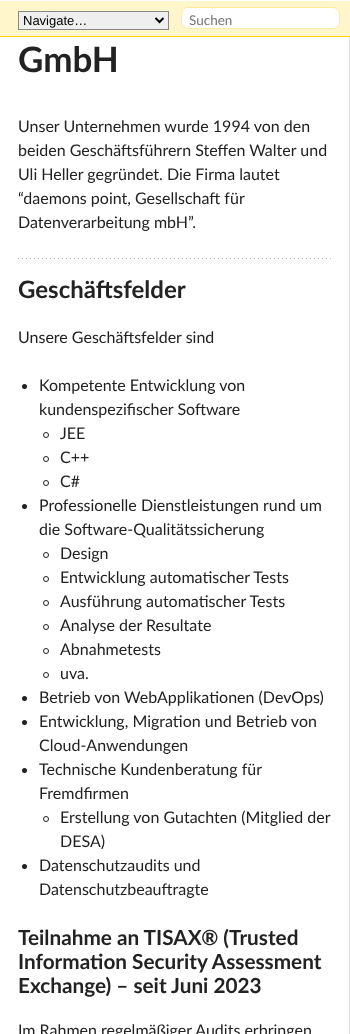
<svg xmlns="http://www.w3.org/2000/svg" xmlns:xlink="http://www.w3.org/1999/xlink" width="350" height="1034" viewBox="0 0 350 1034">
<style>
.cls-1{font:13px Liberation Sans;fill:#000000}
.cls-2{font:13.5px Lato;fill:#757575}
.cls-3{font:bold 35px Lato;fill:#222222}
.cls-4{font:16px Lato;fill:#222222}
.cls-5{font:bold 24px Lato;fill:#222222}
.cls-6{font:bold 20.75px Lato;fill:#222222}
</style>
<rect width="100%" height="100%" fill="#ffffff"/>
<rect fill="#fff6cc" x="0" y="1" width="350" height="35"/>
<rect fill="#ffd000" x="0" y="36" width="350" height="1"/>
<rect fill="#efefef" stroke="#888888" x="18.5" y="11.5" width="150" height="18"/>
<path fill="none" stroke="#000000" stroke-width="2" d="M155.5 18L159.5 22L163.5 18"/>
<path fill="#fff7d6" d="M181 22V23C181 27 184 30 188 30H333C337 30 340 27 340 23V22C340 26 337 29 333 29H188C184 29 181 26 181 22Z"/>
<rect fill="#ffffff" stroke="#ffec99" x="181.5" y="7.5" width="158" height="21" rx="6.5"/>
<rect fill="#e0e0e0" x="349" y="37" width="1" height="997"/>
<image xlink:href="image0.png" x="18" y="258" width="313" height="1"/>
<circle fill="#222222" cx="24.5" cy="386.5" r="2.5"/>
<circle fill="none" stroke="#222222" cx="46" cy="435" r="2.5"/>
<circle fill="none" stroke="#222222" cx="46" cy="459" r="2.5"/>
<circle fill="none" stroke="#222222" cx="46" cy="483" r="2.5"/>
<circle fill="#222222" cx="24.5" cy="506.5" r="2.5"/>
<circle fill="none" stroke="#222222" cx="46" cy="555" r="2.5"/>
<circle fill="none" stroke="#222222" cx="46" cy="579" r="2.5"/>
<circle fill="none" stroke="#222222" cx="46" cy="603" r="2.5"/>
<circle fill="none" stroke="#222222" cx="46" cy="627" r="2.5"/>
<circle fill="none" stroke="#222222" cx="46" cy="651" r="2.5"/>
<circle fill="none" stroke="#222222" cx="46" cy="675" r="2.5"/>
<circle fill="#222222" cx="24.5" cy="698.5" r="2.5"/>
<circle fill="#222222" cx="24.5" cy="722.5" r="2.5"/>
<circle fill="#222222" cx="24.5" cy="770.5" r="2.5"/>
<circle fill="none" stroke="#222222" cx="46" cy="819" r="2.5"/>
<circle fill="#222222" cx="24.5" cy="866.5" r="2.5"/>
<text class="cls-1" x="23" y="25">Navigate…</text>
<text class="cls-2" x="189" y="25">Suchen</text>
<text class="cls-3" x="18" y="72">GmbH</text>
<text class="cls-4"><tspan x="18" y="132">Unser Unternehmen wurde 1994 von den</tspan><tspan x="18" y="156">beiden Geschäftsführern Steffen Walter und</tspan><tspan x="18" y="180">Uli Heller gegründet. Die Firma lautet</tspan><tspan x="18" y="204">“daemons point, Gesellschaft für</tspan><tspan x="18" y="228">Datenverarbeitung mbH”.</tspan></text>
<text class="cls-5" x="18" y="298">Geschäftsfelder</text>
<text class="cls-4" x="18" y="343">Unsere Geschäftsfelder sind</text>
<text class="cls-4"><tspan x="39" y="391">Kompetente Entwicklung von</tspan><tspan x="39" y="415">kundenspezifischer Software</tspan></text>
<text class="cls-4"><tspan x="60" y="439">JEE</tspan><tspan x="60" y="463">C++</tspan><tspan x="60" y="487">C#</tspan></text>
<text class="cls-4"><tspan x="39" y="511">Professionelle Dienstleistungen rund um</tspan><tspan x="39" y="535">die Software-Qualitätssicherung</tspan></text>
<text class="cls-4"><tspan x="60" y="559">Design</tspan><tspan x="60" y="583">Entwicklung automatischer Tests</tspan><tspan x="60" y="607">Ausführung automatischer Tests</tspan><tspan x="60" y="631">Analyse der Resultate</tspan><tspan x="60" y="655">Abnahmetests</tspan><tspan x="60" y="679">uva.</tspan></text>
<text class="cls-4"><tspan x="39" y="703">Betrieb von WebApplikationen (DevOps)</tspan><tspan x="39" y="727">Entwicklung, Migration und Betrieb von</tspan><tspan x="39" y="751">Cloud-Anwendungen</tspan><tspan x="39" y="775">Technische Kundenberatung für</tspan><tspan x="39" y="799">Fremdfirmen</tspan></text>
<text class="cls-4"><tspan x="60" y="823">Erstellung von Gutachten (Mitglied der</tspan><tspan x="60" y="847">DESA)</tspan></text>
<text class="cls-4"><tspan x="39" y="871">Datenschutzaudits und</tspan><tspan x="39" y="895">Datenschutzbeauftragte</tspan></text>
<text class="cls-6"><tspan x="18" y="945">Teilnahme an TISAX® (Trusted</tspan><tspan x="18" y="969">Information Security Assessment</tspan><tspan x="18" y="993">Exchange) – seit Juni 2023</tspan></text>
<text class="cls-4" x="18" y="1036">Im Rahmen regelmäßiger Audits erbringen</text>
</svg>
